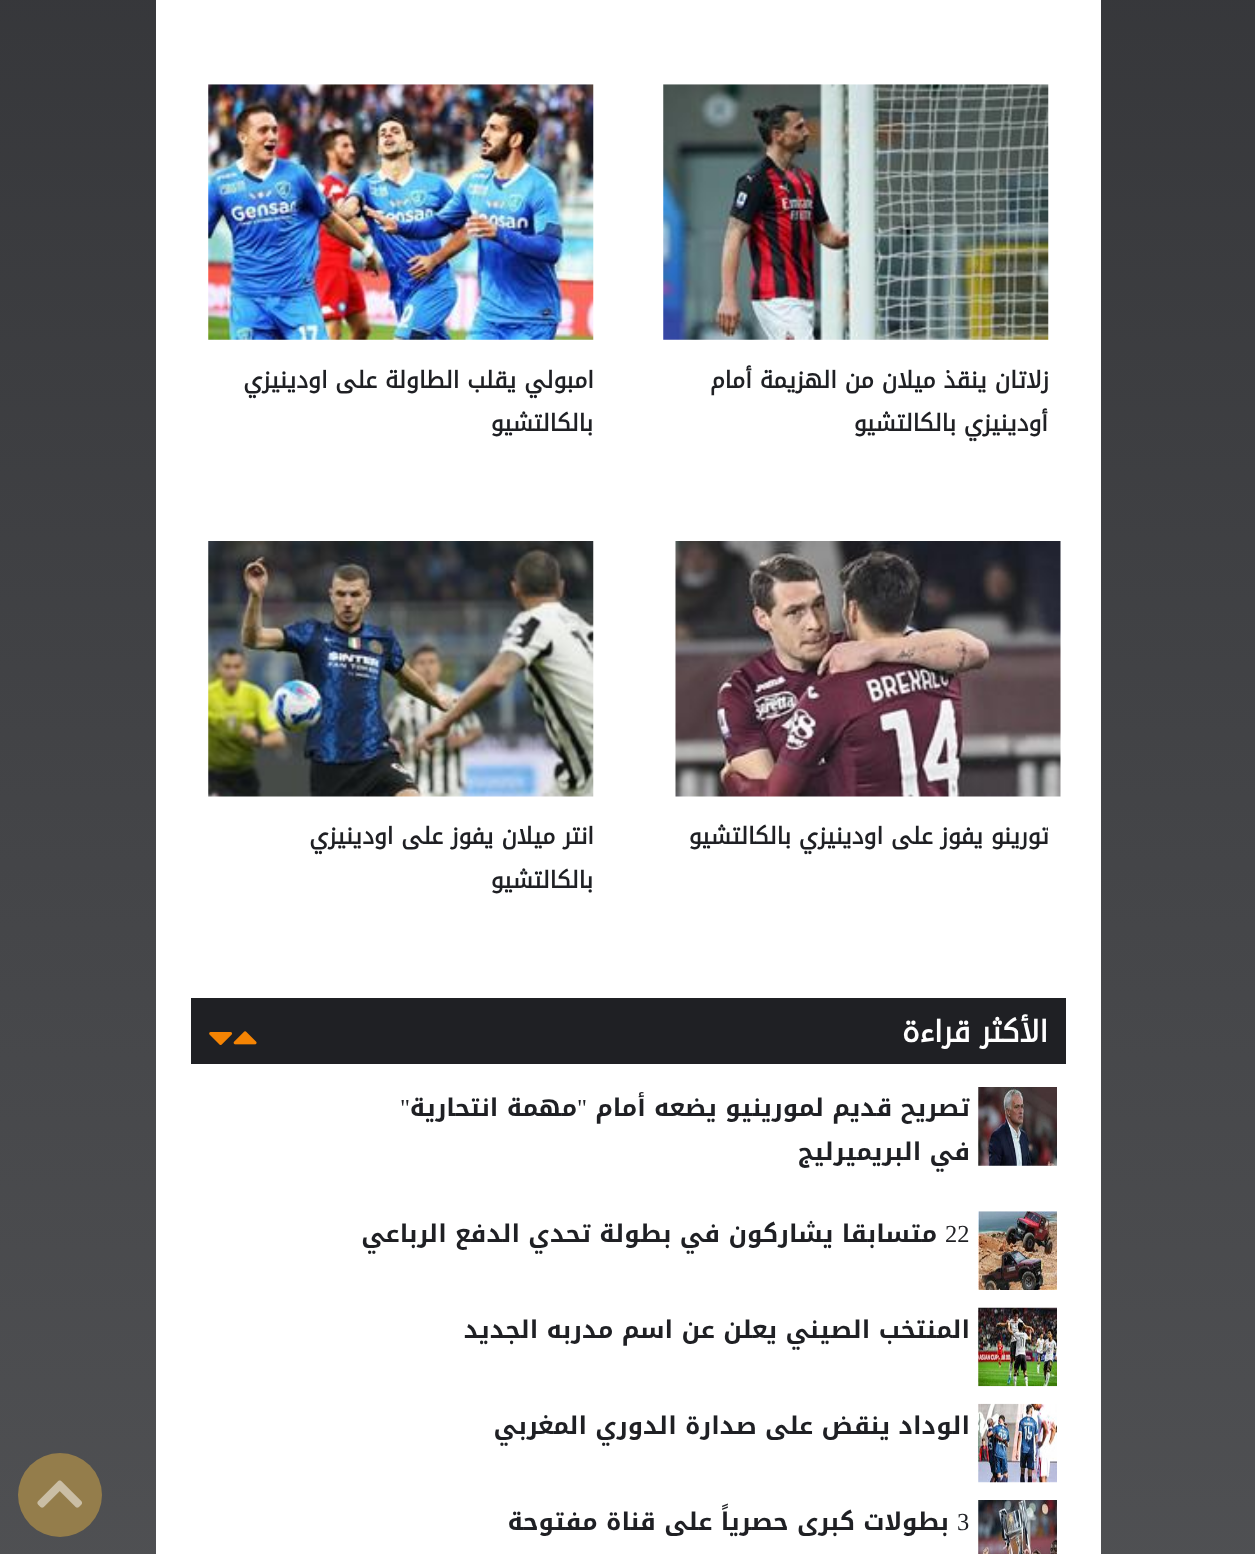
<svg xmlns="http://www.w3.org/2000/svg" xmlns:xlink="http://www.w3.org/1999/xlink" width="1255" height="1554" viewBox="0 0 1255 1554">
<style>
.cls-1{font:bold 23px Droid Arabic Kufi;direction:rtl;fill:#1f2024}
.cls-2{font:bold 29.5px Droid Arabic Kufi;direction:rtl;fill:#ffffff}
.cls-3{font:bold 24.5px 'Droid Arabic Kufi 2';direction:rtl;fill:#1f2024}
.cls-4{font:24.5px Liberation Serif;direction:rtl;fill:#1f2024}
.cls-5{font:24.5px Liberation Serif;fill:#1f2024}
</style>
<defs>
<linearGradient id="g1" gradientUnits="userSpaceOnUse" x1="628" y1="-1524" x2="628" y2="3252"><stop offset="0" stop-color="#1f2024"/><stop offset="1" stop-color="#696a6c"/></linearGradient>
<clipPath id="clip1"><rect x="690" y="814" width="358" height="131"/></clipPath>
</defs>
<rect width="100%" height="100%" fill="#ffffff"/>
<rect fill="url(#g1)" x="0" y="0" width="1255" height="1554"/>
<rect fill="#ffffff" x="156" y="0" width="945" height="1554"/>
<image xlink:href="image0.png" x="663" y="84" width="386" height="256"/>
<image xlink:href="image1.png" x="208" y="84" width="386" height="256"/>
<image xlink:href="image2.png" x="675" y="541" width="386" height="256"/>
<image xlink:href="image3.png" x="208" y="541" width="386" height="256"/>
<rect fill="#1f2024" x="191" y="998" width="875" height="66"/>
<image xlink:href="image4.png" x="233" y="1031" width="24" height="14"/>
<image xlink:href="image5.png" x="209" y="1032" width="24" height="13"/>
<image xlink:href="image6.png" x="978" y="1087" width="79" height="79"/>
<image xlink:href="image7.png" x="978" y="1211" width="79" height="79"/>
<image xlink:href="image8.png" x="978" y="1307" width="79" height="80"/>
<image xlink:href="image9.png" x="978" y="1403" width="79" height="80"/>
<image xlink:href="image10.png" x="978" y="1500" width="79" height="54"/>
<circle fill="#947d4b" cx="60" cy="1495" r="42"/>
<image xlink:href="image11.png" x="37" y="1480" width="45" height="28"/>
<text class="cls-1" x="1049" y="388">زلاتان ينقذ ميلان من الهزيمة أمام</text>
<text class="cls-1" x="1048" y="431">أودينيزي بالكالتشيو</text>
<text class="cls-1" x="594" y="388">امبولي يقلب الطاولة على اودينيزي</text>
<text class="cls-1" x="593" y="431">بالكالتشيو</text>
<g clip-path="url(#clip1)">
<text class="cls-1" x="1049" y="844">تورينو يفوز على اودينيزي بالكالتشيو</text>
</g>
<text class="cls-1" x="594" y="844">انتر ميلان يفوز على اودينيزي</text>
<text class="cls-1" x="593" y="888">بالكالتشيو</text>
<text class="cls-2" x="1048" y="1042">الأكثر قراءة</text>
<text class="cls-3" x="970" y="1116">تصريح قديم لمورينيو يضعه أمام</text>
<text class="cls-4" x="587" y="1116">"</text>
<text class="cls-3" x="577" y="1116">مهمة انتحارية</text>
<text class="cls-4" x="410" y="1116">"</text>
<text class="cls-3" x="970" y="1160">في البريميرليج</text>
<text class="cls-5" x="945" y="1242">22</text>
<text class="cls-3" x="937" y="1242">متسابقا يشاركون في بطولة تحدي الدفع الرباعي</text>
<text class="cls-3" x="970" y="1338">المنتخب الصيني يعلن عن اسم مدربه الجديد</text>
<text class="cls-3" x="970" y="1434">الوداد ينقض على صدارة الدوري المغربي</text>
<text class="cls-5" x="957" y="1530">3</text>
<text class="cls-3" x="949" y="1530">بطولات كبرى حصرياً على قناة مفتوحة</text>
</svg>
